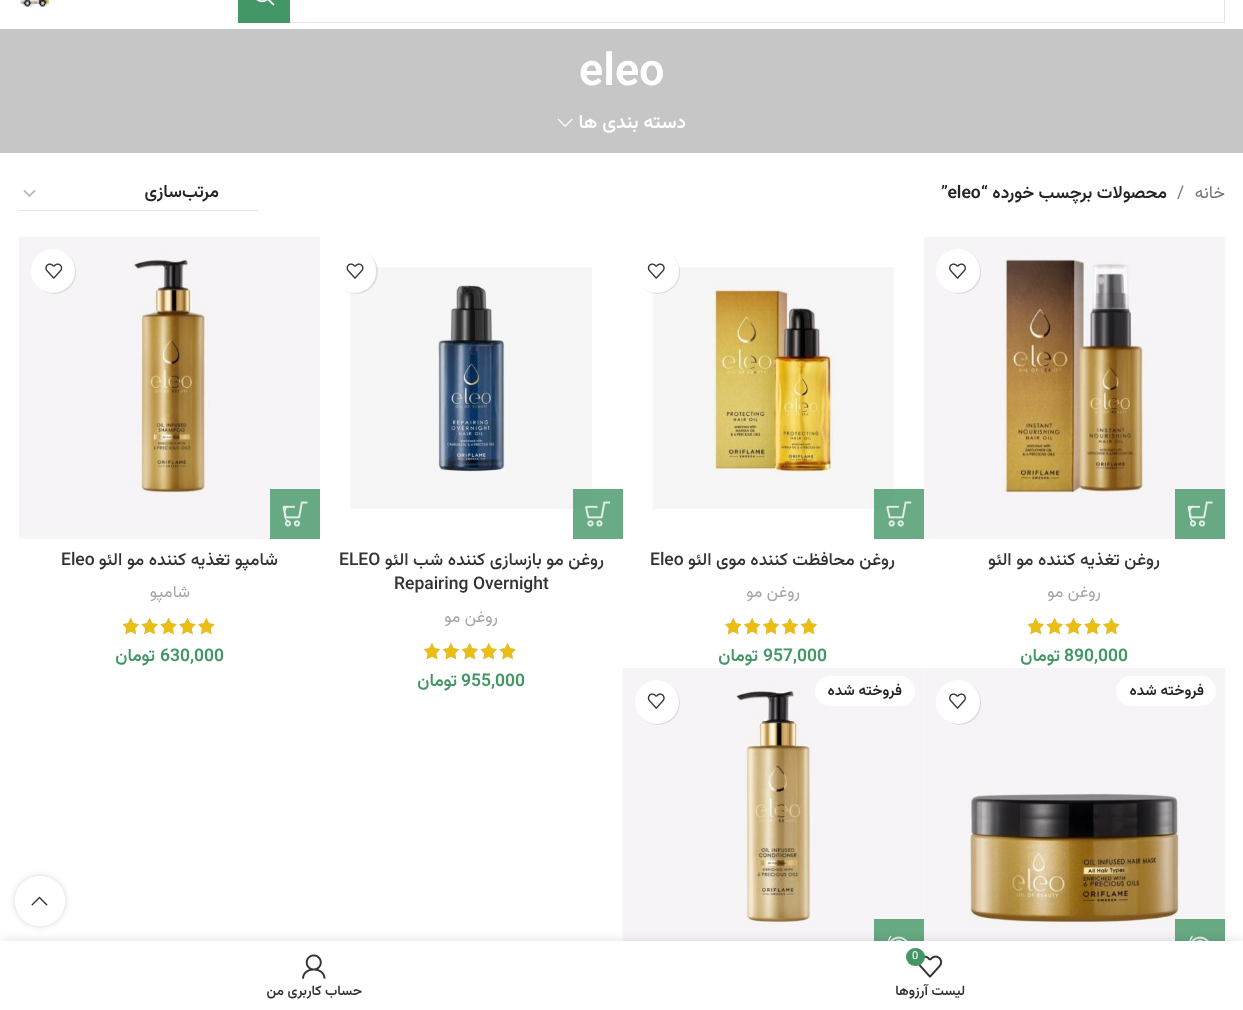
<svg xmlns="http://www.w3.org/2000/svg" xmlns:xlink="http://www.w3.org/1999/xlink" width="1243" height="1010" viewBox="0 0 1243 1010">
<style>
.cls-1{font:600 45px Vazirmatn;fill:#ffffff}
.cls-2{font:600 19.25px Vazirmatn;direction:rtl;fill:#ffffff}
.cls-3{font:17.5px Vazirmatn;direction:rtl;fill:#767676}
.cls-4{font:17.5px Vazirmatn;fill:#767676}
.cls-5{font:600 17.5px Vazirmatn;direction:rtl;fill:#242424}
.cls-6{font:600 17.5px Vazirmatn;fill:#242424}
.cls-7{font:500 17.5px Vazirmatn;direction:rtl;fill:#333333}
.cls-8{font:16.5px Vazirmatn;direction:rtl;fill:#a5a5a5}
.cls-9{font:600 17.5px Vazirmatn;fill:#439665}
.cls-10{font:600 17.5px Vazirmatn;direction:rtl;fill:#439665}
.cls-11{font:500 17.5px Vazirmatn;fill:#333333}
.cls-12{font:600 15px Vazirmatn;direction:rtl;fill:#242424}
.cls-13{font:11px Vazirmatn;fill:#ffffff}
.cls-14{font:600 13.75px Vazirmatn;direction:rtl;fill:#333333}
</style>
<defs>
<clipPath id="clip1"><path d="M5 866H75V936H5ZM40 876C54 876 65 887 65 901C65 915 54 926 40 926C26 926 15 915 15 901C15 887 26 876 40 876Z" clip-rule="evenodd"/></clipPath>
</defs>
<rect width="100%" height="100%" fill="#ffffff"/>
<rect fill="none" stroke="#e6e6e6" x="238.5" y="-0.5" width="986" height="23"/>
<rect fill="#439665" x="238" y="0" width="52" height="23"/>
<image xlink:href="image0.png" x="256" y="0" width="19" height="6"/>
<image xlink:href="image1.png" x="19" y="0" width="31" height="8"/>
<rect fill="#c6c6c6" x="0" y="29" width="1243" height="124"/>
<image xlink:href="image2.png" x="557" y="118" width="16" height="9"/>
<path fill="none" stroke="#bbbbbb" stroke-width="1.8" d="M24 190.5L29.5 196L35 190.5"/>
<rect fill="#e6e6e6" x="19" y="210" width="240" height="1"/>
<image xlink:href="image3.png" x="924" y="236" width="301" height="303"/>
<rect fill="#000000" fill-opacity="0.1" filter="blur(0.5px)" x="938" y="250" width="43" height="44" rx="21.5"/>
<circle fill="#ffffff" cx="958" cy="271" r="22"/>
<image xlink:href="image4.png" x="949" y="263" width="17" height="16"/>
<rect fill="#67a982" x="1175" y="489" width="50" height="50"/>
<image xlink:href="image5.png" x="1187" y="501" width="26" height="26"/>
<path fill="none" stroke="#f6f4f7" stroke-width="1.2" d="M1192.5 521.5C1188.5 517 1188.5 510.5 1192.5 506"/>
<image xlink:href="image6.png" x="1027" y="618" width="93" height="17"/>
<image xlink:href="image7.png" x="1028" y="618" width="92" height="17"/>
<image xlink:href="image9.png" x="652" y="267" width="242" height="242"/>
<rect fill="#000000" fill-opacity="0.1" filter="blur(0.5px)" x="636" y="250" width="44" height="44" rx="22"/>
<circle fill="#ffffff" cx="657" cy="271" r="22"/>
<image xlink:href="image8.png" x="647" y="263" width="18" height="16"/>
<rect fill="#439665" fill-opacity="0.8" x="874" y="489" width="50" height="50"/>
<image xlink:href="image10.png" x="886" y="501" width="26" height="26"/>
<image xlink:href="image11.png" x="725" y="618" width="92" height="17"/>
<image xlink:href="image12.png" x="725" y="618" width="92" height="17"/>
<image xlink:href="image14.png" x="350" y="267" width="242" height="242"/>
<rect fill="#000000" fill-opacity="0.1" filter="blur(0.5px)" x="334" y="250" width="44" height="44" rx="22"/>
<rect fill="#ffffff" x="333" y="249" width="43" height="44" rx="21.5"/>
<image xlink:href="image13.png" x="346" y="263" width="18" height="16"/>
<rect fill="#439665" fill-opacity="0.8" x="573" y="489" width="50" height="50"/>
<image xlink:href="image15.png" x="585" y="501" width="25" height="26"/>
<image xlink:href="image16.png" x="424" y="643" width="92" height="17"/>
<image xlink:href="image17.png" x="424" y="643" width="92" height="17"/>
<image xlink:href="image18.png" x="19" y="236" width="301" height="303"/>
<rect fill="#000000" fill-opacity="0.1" filter="blur(0.5px)" x="33" y="250" width="43" height="44" rx="21.5"/>
<circle fill="#ffffff" cx="53" cy="271" r="22"/>
<image xlink:href="image19.png" x="45" y="263" width="18" height="16"/>
<rect fill="#67a982" x="270" y="489" width="50" height="50"/>
<image xlink:href="image5.png" x="282" y="501" width="26" height="26"/>
<path fill="none" stroke="#f6f4f7" stroke-width="1.2" d="M287.5 521.5C283.5 517 283.5 510.5 287.5 506"/>
<image xlink:href="image6.png" x="122" y="618" width="93" height="17"/>
<image xlink:href="image7.png" x="123" y="618" width="92" height="17"/>
<image xlink:href="image20.png" x="924" y="668" width="301" height="273"/>
<rect fill="#ffffff" x="1116" y="676" width="100" height="30" rx="15"/>
<rect fill="#000000" fill-opacity="0.1" filter="blur(0.5px)" x="938" y="681" width="43" height="44" rx="21.5"/>
<circle fill="#ffffff" cx="958" cy="702" r="22"/>
<image xlink:href="image4.png" x="949" y="693" width="17" height="16"/>
<rect fill="#439665" fill-opacity="0.8" x="1175" y="919" width="50" height="22"/>
<image xlink:href="image21.png" x="1191" y="936" width="18" height="5"/>
<path fill="none" stroke="#f6f4f7" stroke-width="1.2" d="M1192.5 951.5C1188.5 947 1188.5 940.5 1192.5 936"/>
<image xlink:href="image22.png" x="622" y="668" width="302" height="273"/>
<rect fill="#ffffff" x="815" y="676" width="100" height="30" rx="15"/>
<rect fill="#000000" fill-opacity="0.1" filter="blur(0.5px)" x="636" y="681" width="44" height="44" rx="22"/>
<circle fill="#ffffff" cx="657" cy="702" r="22"/>
<image xlink:href="image8.png" x="647" y="693" width="18" height="16"/>
<rect fill="#67a982" x="874" y="919" width="50" height="22"/>
<image xlink:href="image23.png" x="890" y="936" width="18" height="5"/>
<path fill="none" stroke="#f6f4f7" stroke-width="1.2" d="M891 951.5C887 947 887 940.5 891 936"/>
<g clip-path="url(#clip1)">
<rect fill="#000000" fill-opacity="0.17" filter="blur(3px)" x="15" y="876" width="50" height="50" rx="25"/>
</g>
<circle fill="#ffffff" fill-opacity="0.9" cx="40" cy="901" r="25"/>
<image xlink:href="image24.png" x="31" y="896" width="17" height="10"/>
<rect fill="#000000" fill-opacity="0.12" filter="blur(5.5px)" x="0" y="941" width="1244" height="69"/>
<rect fill="#ffffff" x="0" y="941" width="1243" height="69"/>
<image xlink:href="image25.png" x="918" y="955" width="25" height="23"/>
<rect fill="#439665" x="906" y="948" width="19" height="18" rx="9"/>
<image xlink:href="image26.png" x="302" y="954" width="24" height="25"/>
<text class="cls-1" x="579" y="85">eleo</text>
<text class="cls-2" x="686" y="128">دسته بندی ها</text>
<text class="cls-3" x="1225" y="198">خانه</text>
<text class="cls-4" x="1177" y="198">/</text>
<text class="cls-5" x="1167" y="198">محصولات برچسب خورده “</text>
<text class="cls-6" x="941" y="198">”eleo</text>
<text class="cls-5" x="219" y="197">مرتب‌سازی</text>
<text class="cls-7" x="1160" y="565">روغن تغذیه کننده مو الئو</text>
<text class="cls-8" x="1101" y="597">روغن مو</text>
<text class="cls-9" x="1064" y="661">890,000</text>
<text class="cls-10" x="1060" y="661">تومان</text>
<text class="cls-7" x="895" y="565">روغن محافظت کننده موی الئو</text>
<text class="cls-11" x="650" y="565">Eleo</text>
<text class="cls-8" x="800" y="597">روغن مو</text>
<text class="cls-9" x="763" y="661">957,000</text>
<text class="cls-10" x="758" y="661">تومان</text>
<text class="cls-7" x="604" y="565">روغن مو بازسازی کننده شب الئو</text>
<text class="cls-11" x="339" y="565">ELEO</text>
<text class="cls-11" x="394" y="589">Repairing Overnight</text>
<text class="cls-8" x="498" y="622">روغن مو</text>
<text class="cls-9" x="461" y="686">955,000</text>
<text class="cls-10" x="457" y="686">تومان</text>
<text class="cls-7" x="278" y="565">شامپو تغذيه کننده مو الئو</text>
<text class="cls-11" x="61" y="565">Eleo</text>
<text class="cls-8" x="190" y="597">شامپو</text>
<text class="cls-9" x="160" y="661">630,000</text>
<text class="cls-10" x="155" y="661">تومان</text>
<text class="cls-12" x="1204" y="695">فروخته شده</text>
<text class="cls-12" x="902" y="695">فروخته شده</text>
<text class="cls-13" x="912" y="959">0</text>
<text class="cls-14" x="965" y="995">لیست آرزوها</text>
<text class="cls-14" x="362" y="995">حساب کاربری من</text>
</svg>
